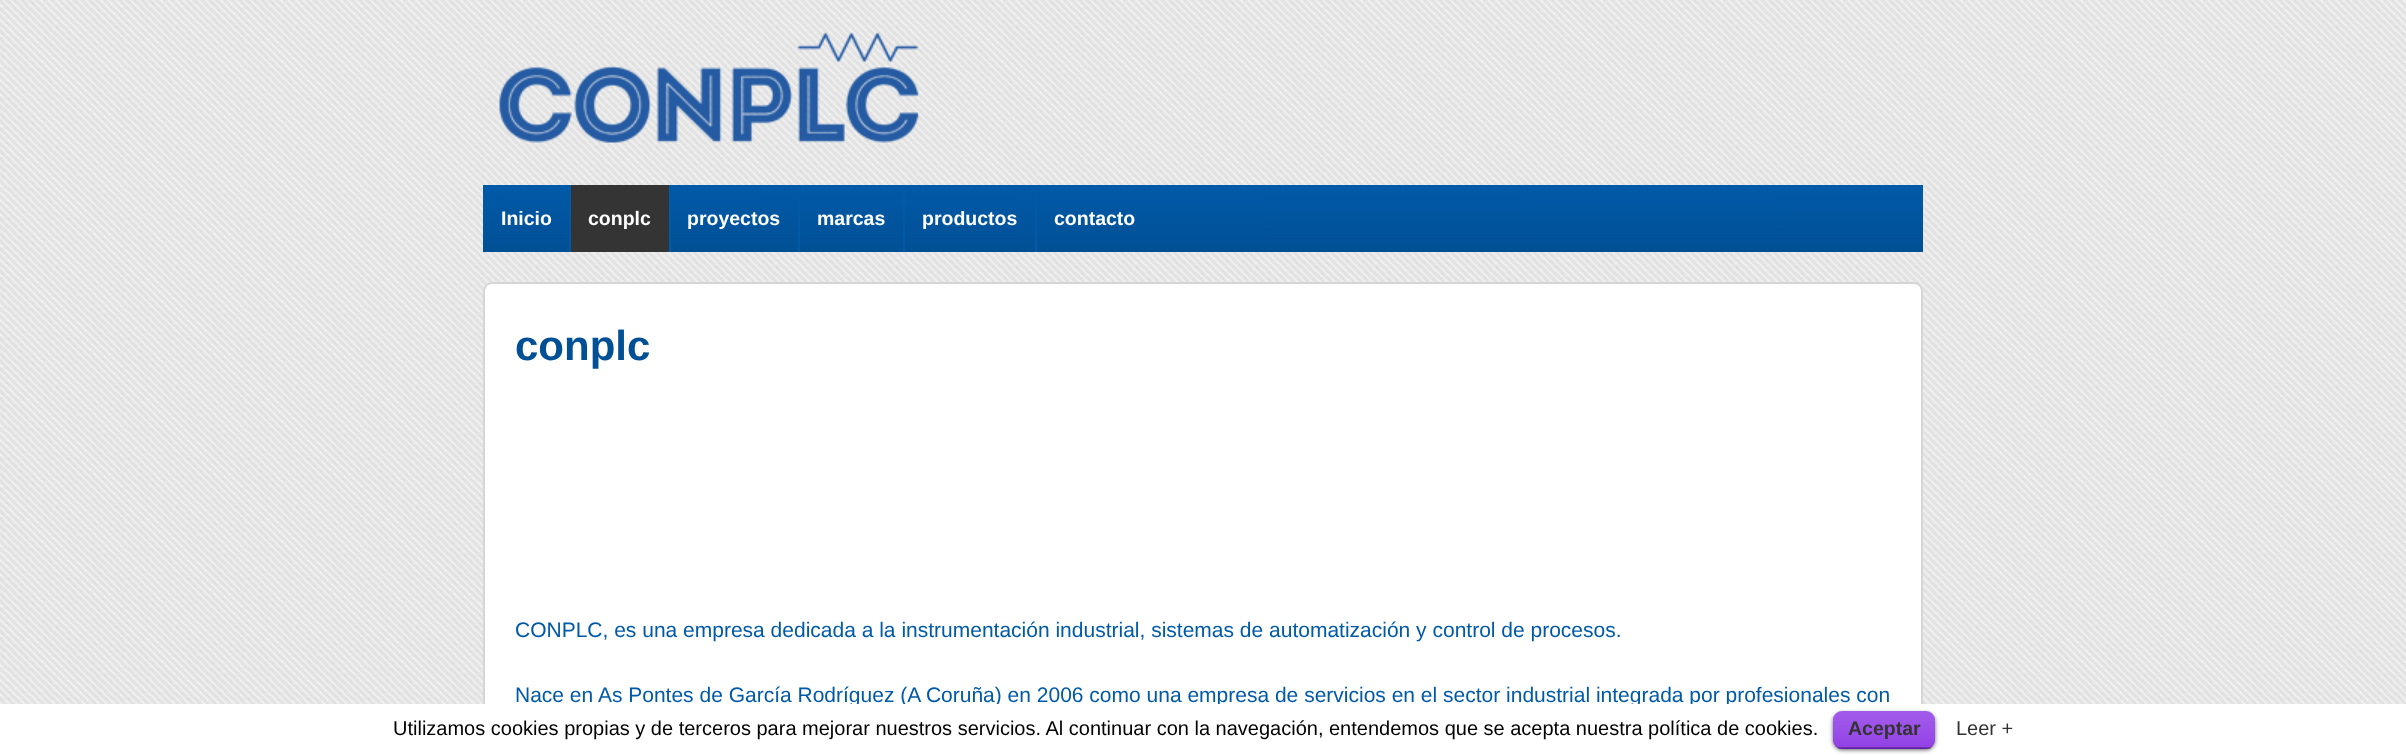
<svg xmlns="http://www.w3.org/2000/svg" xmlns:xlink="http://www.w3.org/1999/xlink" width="2406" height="755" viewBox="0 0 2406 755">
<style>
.cls-1{font:bold 19.5px Liberation Sans;fill:#ffffff}
.cls-2{font:bold 42px Liberation Sans;fill:#015095}
.cls-3{font:21px Liberation Sans;fill:#005aa8}
.cls-4{font:20px Liberation Sans;fill:#000000}
.cls-5{font:bold 19.5px Liberation Sans;fill:#333333}
.cls-6{font:20px Liberation Sans;fill:#333333}
</style>
<defs>
<linearGradient id="g1" gradientUnits="userSpaceOnUse" x1="1203" y1="184" x2="1203" y2="252"><stop offset="0" stop-color="#005aa8"/><stop offset="1" stop-color="#015095"/></linearGradient>
</defs>
<rect width="100%" height="100%" fill="#ffffff"/>
<image xlink:href="image0.png" x="0" y="0" width="2406" height="704"/>
<image xlink:href="image1.png" x="499" y="32" width="420" height="111"/>
<rect fill="url(#g1)" x="483" y="185" width="1440" height="67"/>
<rect fill="#343434" x="571" y="185" width="98" height="67"/>
<rect fill="#005aa8" x="569" y="185" width="2" height="67"/>
<rect fill="#005aa8" x="669" y="185" width="2" height="67"/>
<rect fill="#005aa8" x="798" y="185" width="2" height="67"/>
<rect fill="#005aa8" x="903" y="185" width="2" height="67"/>
<rect fill="#005aa8" x="1035" y="185" width="2" height="67"/>
<rect fill="#ffffff" stroke="#d6d6d6" stroke-width="2" x="484" y="283" width="1438" height="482" rx="8"/>
<text class="cls-1" x="501" y="225">Inicio</text>
<text class="cls-1" x="588" y="225">conplc</text>
<text class="cls-1" x="687" y="225">proyectos</text>
<text class="cls-1" x="817" y="225">marcas</text>
<text class="cls-1" x="922" y="225">productos</text>
<text class="cls-1" x="1054" y="225">contacto</text>
<text class="cls-2" x="515" y="360">conplc</text>
<text class="cls-3" x="515" y="637">CONPLC, es una empresa dedicada a la instrumentación industrial, sistemas de automatización y control de procesos.</text>
<text class="cls-3" x="515" y="702">Nace en As Pontes de García Rodríguez (A Coruña) en 2006 como una empresa de servicios en el sector industrial integrada por profesionales con</text>
<rect fill="#ffffff" x="483" y="704" width="1440" height="51"/>
<text class="cls-4" x="393" y="735">Utilizamos cookies propias y de terceros para mejorar nuestros servicios. Al continuar con la navegación, entendemos que se acepta nuestra política de cookies.</text>
<rect fill="#000000" fill-opacity="0.6" filter="blur(2px)" x="1833" y="713" width="102" height="37" rx="9"/>
<rect fill="#8224e3" x="1833" y="711" width="102" height="38" rx="9"/>
<image xlink:href="image2.png" x="1833" y="711" width="102" height="38"/>
<rect fill="#000000" fill-opacity="0.25" x="1838" y="747" width="93" height="2"/>
<text class="cls-5" x="1848" y="735">Aceptar</text>
<text class="cls-6" x="1956" y="735">Leer +</text>
</svg>
